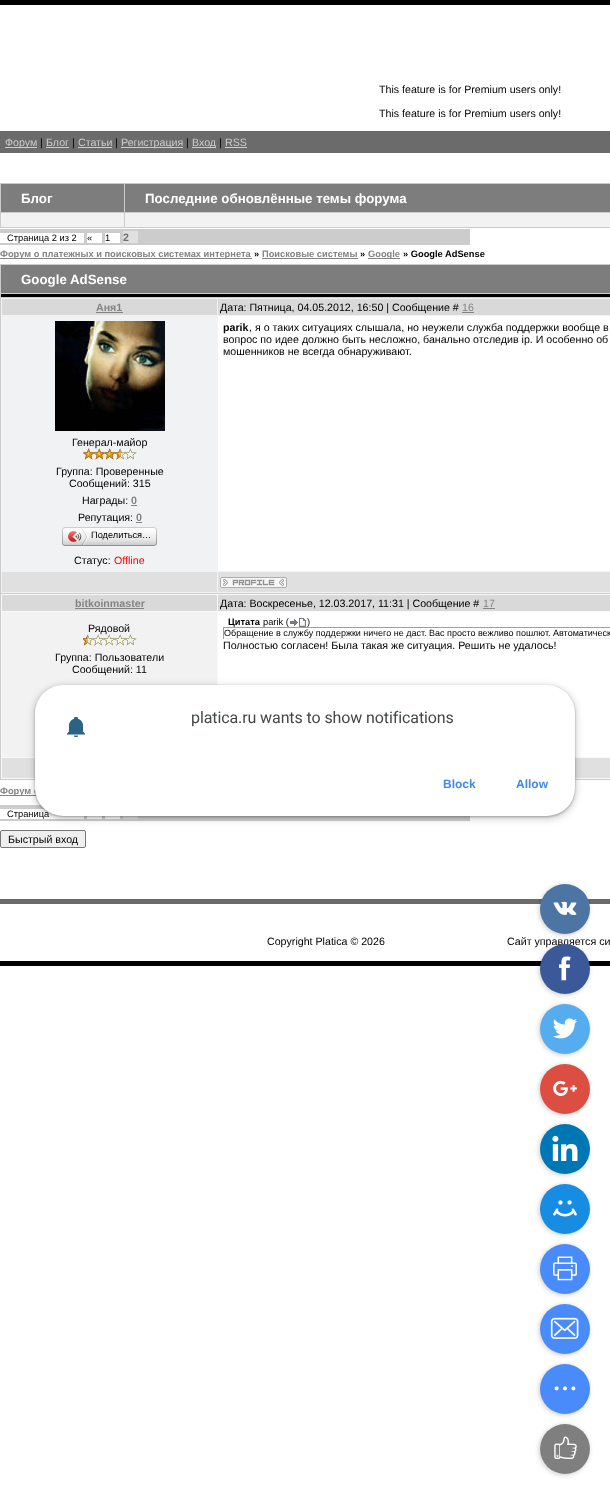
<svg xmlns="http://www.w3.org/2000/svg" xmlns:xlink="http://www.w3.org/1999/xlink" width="610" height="1499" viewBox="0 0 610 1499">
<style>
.cls-1{font:10.65px Liberation Sans;fill:#000000}
.cls-2{font:10.65px Liberation Sans;fill:#cccccc}
.cls-3{font:bold 13.3px Liberation Sans;fill:#ffffff}
.cls-4{font:9.3px Liberation Sans;fill:#000000}
.cls-5{font:bold 10.65px Liberation Sans;fill:#6e6e6e}
.cls-6{font:bold 9.3px Liberation Sans;fill:#838383}
.cls-7{font:bold 9.3px Liberation Sans;fill:#000000}
.cls-8{font:bold 10.65px Liberation Sans;fill:#838383}
.cls-9{font:10.65px Liberation Sans;fill:#838383}
.cls-10{font:bold 10.65px Liberation Sans;fill:#000000}
.cls-11{font:9.25px Liberation Sans;fill:#000000}
.cls-12{font:10.65px Liberation Sans;fill:#ff0000}
.cls-13{font:9px Liberation Sans;fill:#000000}
.cls-14{font:16px Roboto;letter-spacing:-0.1px;fill:#434749}
.cls-15{font:bold 12px Liberation Sans;fill:#4089e8}
</style>
<defs>
<clipPath id="clip1"><path d="M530 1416H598V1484H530ZM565 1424C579 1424 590 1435 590 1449C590 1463 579 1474 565 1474C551 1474 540 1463 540 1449C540 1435 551 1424 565 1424Z" clip-rule="evenodd"/></clipPath>
</defs>
<rect width="100%" height="100%" fill="#ffffff"/>
<rect fill="#000000" x="0" y="0" width="610" height="5"/>
<rect fill="#6b6b6b" x="0" y="131" width="610" height="22"/>
<rect fill="#cccccc" x="5" y="147" width="32" height="1"/>
<rect fill="#cccccc" x="46" y="147" width="23" height="1"/>
<rect fill="#cccccc" x="78" y="147" width="34" height="1"/>
<rect fill="#cccccc" x="121" y="147" width="62" height="1"/>
<rect fill="#cccccc" x="192" y="147" width="24" height="1"/>
<rect fill="#cccccc" x="225" y="147" width="22" height="1"/>
<rect fill="#cccccc" x="0" y="183" width="610" height="45"/>
<rect fill="#7d7d7d" x="1" y="184" width="123" height="28"/>
<rect fill="#7d7d7d" x="125" y="184" width="485" height="28"/>
<rect fill="#f2f2f2" x="1" y="213" width="123" height="14"/>
<rect fill="#f2f2f2" x="125" y="213" width="485" height="14"/>
<rect fill="#cccccc" x="0" y="229" width="470" height="16"/>
<rect fill="#ffffff" x="0" y="233" width="84" height="10"/>
<rect fill="#ffffff" x="87" y="233" width="15" height="10"/>
<rect fill="#ffffff" x="105" y="233" width="15" height="10"/>
<rect fill="#e0e0e0" x="123" y="231" width="15" height="12"/>
<rect fill="#838383" x="0" y="258" width="252" height="1"/>
<rect fill="#838383" x="262" y="258" width="96" height="1"/>
<rect fill="#838383" x="368" y="258" width="32" height="1"/>
<rect fill="#cccccc" x="0" y="264" width="610" height="516"/>
<rect fill="#7d7d7d" x="1" y="265" width="609" height="28"/>
<rect fill="#000000" x="1" y="294" width="609" height="3"/>
<rect fill="#f1f2f3" x="1" y="298" width="609" height="295"/>
<rect fill="#d9d9d9" x="2" y="299" width="215" height="16"/>
<rect fill="#838383" x="96" y="312" width="27" height="1"/>
<rect fill="#d9d9d9" x="218" y="299" width="392" height="16"/>
<rect fill="#838383" x="462" y="312" width="12" height="1"/>
<rect fill="#ffffff" x="218" y="316" width="392" height="255"/>
<image xlink:href="image0.png" x="55" y="321" width="110" height="110"/>
<rect fill="#838383" x="131" y="505" width="6" height="1"/>
<rect fill="#838383" x="136" y="522" width="6" height="1"/>
<image xlink:href="image2.png" x="65" y="527" width="89" height="19"/>
<image xlink:href="image3.png" x="62" y="527" width="3" height="19"/>
<image xlink:href="image4.png" x="68" y="528" width="20" height="17"/>
<image xlink:href="image5.png" x="154" y="527" width="3" height="19"/>
<rect fill="#e0e0e0" x="2" y="572" width="215" height="20"/>
<rect fill="#e0e0e0" x="218" y="572" width="392" height="20"/>
<image xlink:href="image6.png" x="220" y="577" width="67" height="11"/>
<rect fill="#f8f9fa" x="1" y="594" width="609" height="185"/>
<rect fill="#d9d9d9" x="2" y="595" width="215" height="16"/>
<rect fill="#838383" x="75" y="608" width="69" height="1"/>
<rect fill="#d9d9d9" x="218" y="595" width="392" height="16"/>
<rect fill="#838383" x="483" y="608" width="12" height="1"/>
<rect fill="#f2f2f2" x="2" y="612" width="215" height="145"/>
<rect fill="#ffffff" x="218" y="612" width="392" height="145"/>
<image xlink:href="image8.png" x="290" y="618" width="16" height="9"/>
<rect fill="#9f9f9f" x="223" y="627" width="387" height="1"/>
<rect fill="#eeeeee" x="223" y="638" width="387" height="1"/>
<rect fill="#9f9f9f" x="223" y="627" width="1" height="12"/>
<rect fill="#e0e0e0" x="2" y="758" width="33" height="20"/>
<rect fill="#e0e0e0" x="575" y="758" width="35" height="20"/>
<rect fill="#838383" x="0" y="795" width="37" height="1"/>
<rect fill="#cccccc" x="0" y="805" width="470" height="16"/>
<rect fill="#ffffff" x="0" y="809" width="84" height="10"/>
<rect fill="#ffffff" x="87" y="816" width="15" height="3"/>
<rect fill="#ffffff" x="105" y="816" width="15" height="3"/>
<rect fill="#e0e0e0" x="123" y="816" width="15" height="3"/>
<rect fill="#efefef" stroke="#767676" x="0.5" y="830.5" width="85" height="17" rx="1.5"/>
<rect fill="#6b6b6b" x="0" y="899" width="610" height="5"/>
<rect fill="#000000" x="0" y="961" width="610" height="5"/>
<rect fill="#000000" fill-opacity="0.15" filter="blur(3px)" x="33" y="685" width="544" height="135" rx="30"/>
<rect fill="#000000" fill-opacity="0.3" filter="blur(1px)" x="35" y="686" width="540" height="131" rx="28"/>
<rect fill="#000000" fill-opacity="0.2" filter="blur(2.5px)" x="539" y="885" width="50" height="50" rx="25"/>
<circle fill="#4d75a3" cx="565" cy="909" r="25"/>
<image xlink:href="image10.png" x="553" y="901" width="24" height="14"/>
<rect fill="#000000" fill-opacity="0.2" filter="blur(2.5px)" x="539" y="945" width="50" height="50" rx="25"/>
<rect fill="#000000" fill-opacity="0.2" filter="blur(2.5px)" x="539" y="1005" width="50" height="50" rx="25"/>
<circle fill="#55acee" cx="565" cy="1029" r="25"/>
<image xlink:href="image12.png" x="553" y="1018" width="25" height="21"/>
<rect fill="#000000" fill-opacity="0.2" filter="blur(2.5px)" x="539" y="1065" width="50" height="50" rx="25"/>
<circle fill="#dc4e41" cx="565" cy="1089" r="25"/>
<image xlink:href="image13.png" x="553" y="1080" width="24" height="16"/>
<rect fill="#000000" fill-opacity="0.2" filter="blur(2.5px)" x="539" y="1125" width="50" height="50" rx="25"/>
<circle fill="#0077b5" cx="565" cy="1149" r="25"/>
<image xlink:href="image14.png" x="552" y="1135" width="26" height="26"/>
<rect fill="#000000" fill-opacity="0.2" filter="blur(2.5px)" x="539" y="1185" width="50" height="50" rx="25"/>
<circle fill="#168de2" cx="565" cy="1209" r="25"/>
<image xlink:href="image15.png" x="553" y="1200" width="24" height="17"/>
<rect fill="#000000" fill-opacity="0.2" filter="blur(2.5px)" x="539" y="1245" width="50" height="50" rx="25"/>
<circle fill="#498bfa" cx="565" cy="1269" r="25"/>
<image xlink:href="image16.png" x="553" y="1256" width="24" height="25"/>
<rect fill="#000000" fill-opacity="0.2" filter="blur(2.5px)" x="539" y="1305" width="50" height="50" rx="25"/>
<circle fill="#498bfa" cx="565" cy="1329" r="25"/>
<image xlink:href="image17.png" x="550" y="1317" width="29" height="22"/>
<rect fill="#000000" fill-opacity="0.2" filter="blur(2.5px)" x="539" y="1365" width="50" height="50" rx="25"/>
<circle fill="#498bfa" cx="565" cy="1389" r="25"/>
<image xlink:href="image18.png" x="554" y="1386" width="22" height="5"/>
<g clip-path="url(#clip1)">
<rect fill="#000000" fill-opacity="0.2" filter="blur(2.5px)" x="539" y="1425" width="50" height="50" rx="25"/>
</g>
<circle fill="#000000" fill-opacity="0.5" cx="565" cy="1449" r="25"/>
<image xlink:href="image19.png" x="554" y="1436" width="23" height="23"/>
<text class="cls-1" x="379" y="93">This feature is for Premium users only!</text>
<text class="cls-1" x="379" y="117">This feature is for Premium users only!</text>
<text class="cls-2" x="5" y="146">Форум</text>
<text class="cls-1" x="40" y="146">|</text>
<text class="cls-2" x="46" y="146">Блог</text>
<text class="cls-1" x="72" y="146">|</text>
<text class="cls-2" x="78" y="146">Статьи</text>
<text class="cls-1" x="115" y="146">|</text>
<text class="cls-2" x="121" y="146">Регистрация</text>
<text class="cls-1" x="186" y="146">|</text>
<text class="cls-2" x="192" y="146">Вход</text>
<text class="cls-1" x="219" y="146">|</text>
<text class="cls-2" x="225" y="146">RSS</text>
<text class="cls-3" x="21" y="203">Блог</text>
<text class="cls-3" x="145" y="203">Последние обновлённые темы форума</text>
<text class="cls-4" x="7" y="241">Страница 2 из 2</text>
<text class="cls-4" x="87" y="241">«</text>
<text class="cls-4" x="105" y="241">1</text>
<text class="cls-5" x="123" y="241">2</text>
<text class="cls-6" x="0" y="257">Форум о платежных и поисковых системах интернета</text>
<text class="cls-7" x="254" y="257">»</text>
<text class="cls-6" x="262" y="257">Поисковые системы</text>
<text class="cls-7" x="360" y="257">»</text>
<text class="cls-6" x="368" y="257">Google</text>
<text class="cls-7" x="403" y="257">» Google AdSense</text>
<text class="cls-3" x="21" y="284">Google AdSense</text>
<text class="cls-8" x="96" y="311">Аня1</text>
<text class="cls-1" x="220" y="311">Дата: Пятница, 04.05.2012, 16:50 | Сообщение #</text>
<text class="cls-9" x="462" y="311">16</text>
<text class="cls-10" x="223" y="331">parik</text>
<text class="cls-1" x="249" y="331">, я о таких ситуациях слышала, но неужели служба поддержки вообще в</text>
<text class="cls-1"><tspan x="223" y="343">вопрос по идее должно быть несложно, банально отследив ip. И особенно об</tspan><tspan x="223" y="355">мошенников не всегда обнаруживают.</tspan></text>
<text class="cls-1" x="72" y="446">Генерал-майор</text>
<image xlink:href="image1.png" x="82" y="448" width="55" height="12"/>
<text class="cls-1" x="56" y="475">Группа: Проверенные</text>
<text class="cls-1" x="69" y="487">Сообщений: 315</text>
<text class="cls-1" x="82" y="504">Награды:</text>
<text class="cls-8" x="131" y="504">0</text>
<text class="cls-1" x="78" y="521">Репутация:</text>
<text class="cls-8" x="136" y="521">0</text>
<text class="cls-11" x="91" y="538">Поделиться…</text>
<text class="cls-1" x="74" y="564">Статус:</text>
<text class="cls-12" x="114" y="564">Offline</text>
<text class="cls-8" x="75" y="607">bitkoinmaster</text>
<text class="cls-1" x="220" y="607">Дата: Воскресенье, 12.03.2017, 11:31 | Сообщение #</text>
<text class="cls-9" x="483" y="607">17</text>
<text class="cls-1" x="88" y="632">Рядовой</text>
<image xlink:href="image7.png" x="82" y="634" width="55" height="12"/>
<text class="cls-1" x="55" y="661">Группа: Пользователи</text>
<text class="cls-1" x="72" y="673">Сообщений: 11</text>
<text class="cls-7" x="228" y="625">Цитата</text>
<text class="cls-4" x="263" y="625">parik (</text>
<text class="cls-4" x="307" y="625">)</text>
<text class="cls-13" x="224" y="636">Обращение в службу поддержки ничего не даст. Вас просто вежливо пошлют. Автоматическ</text>
<text class="cls-1" x="223" y="649">Полностью согласен! Была такая же ситуация. Решить не удалось!</text>
<text class="cls-6" x="0" y="794">Форум о</text>
<text class="cls-4" x="7" y="817">Страница</text>
<text class="cls-1" x="8" y="843">Быстрый вход</text>
<text class="cls-1" x="267" y="945">Copyright Platica © 2026</text>
<text class="cls-1" x="507" y="945">Сайт управляется си</text>
<rect fill="#ffffff" x="35" y="685" width="540" height="131" rx="28"/>
<image xlink:href="image9.png" x="67" y="717" width="18" height="20"/>
<text class="cls-14" x="191" y="723">platica.ru wants to show notifications</text>
<text class="cls-15" x="443" y="788">Block</text>
<text class="cls-15" x="516" y="788">Allow</text>
<circle fill="#3b5998" cx="565" cy="969" r="25"/>
<image xlink:href="image11.png" x="559" y="956" width="12" height="25"/>
</svg>
